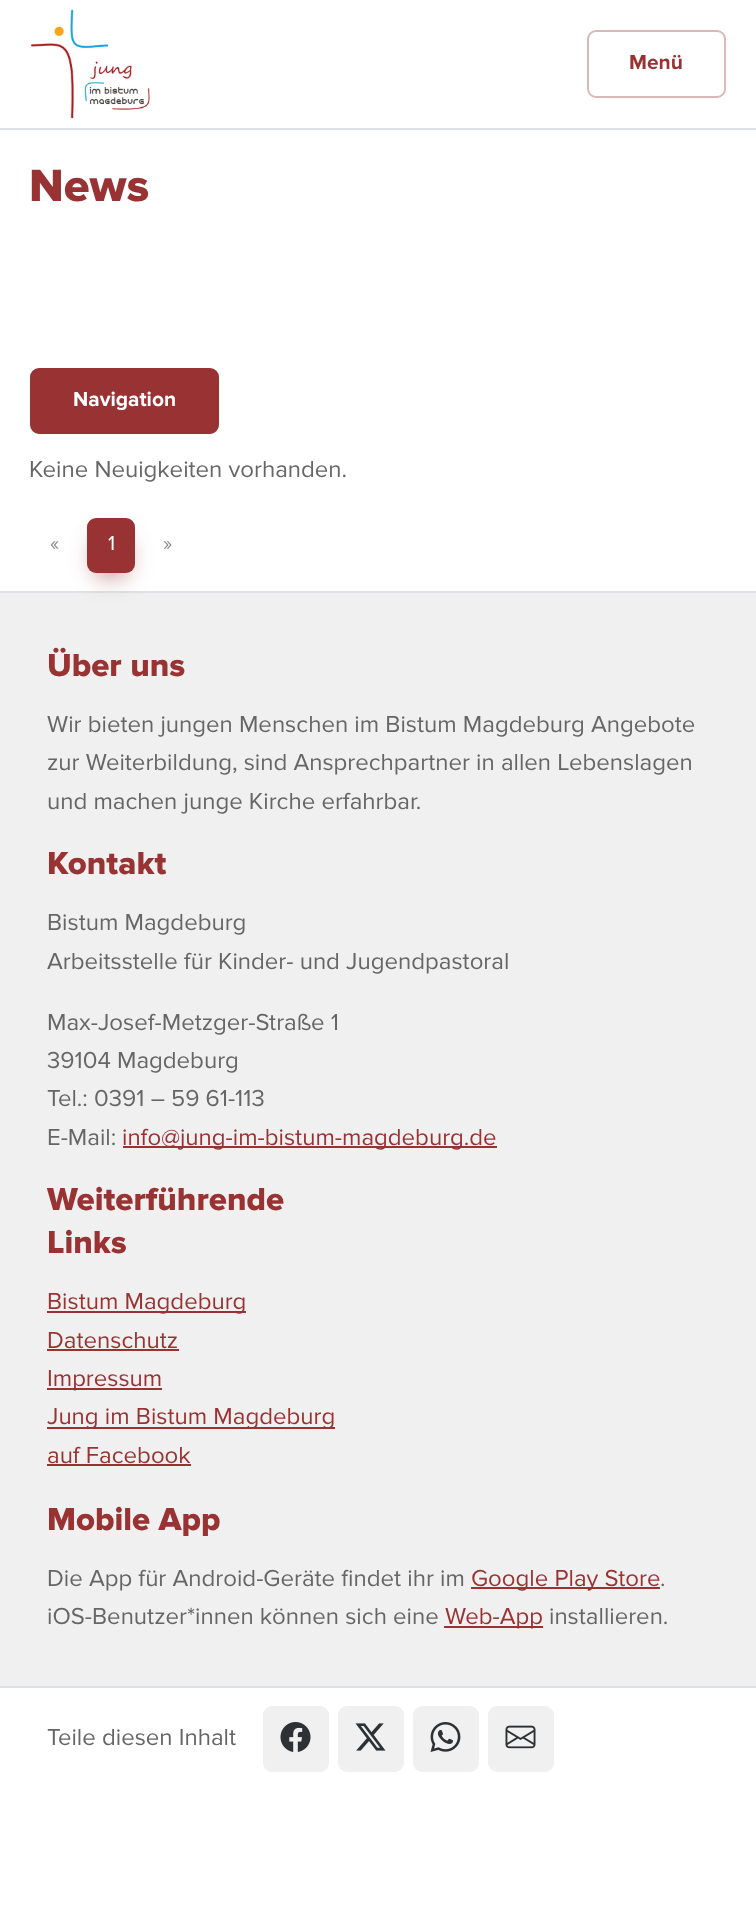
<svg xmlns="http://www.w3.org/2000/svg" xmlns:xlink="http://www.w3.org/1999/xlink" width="756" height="1910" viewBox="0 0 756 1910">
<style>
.cls-1{font:bold 21px Proxima Nova;fill:#993333}
.cls-2{font:800 47px Proxima Nova;fill:#993333}
.cls-3{font:bold 21px Proxima Nova;fill:#ffffff}
.cls-4{font:24px Proxima Nova;fill:#666666}
.cls-5{font:21px Proxima Nova;fill:#8c8c8c}
.cls-6{font:21px Proxima Nova;fill:#ffffff}
.cls-7{font:800 33px Proxima Nova;fill:#993333}
.cls-8{font:24px Proxima Nova;fill:#993333}
</style>
<rect width="100%" height="100%" fill="#ffffff"/>
<rect fill="#dee2e6" x="0" y="128" width="756" height="2"/>
<image xlink:href="image0.png" x="30" y="9" width="120" height="110"/>
<rect fill="none" stroke="#dbb8b8" stroke-width="2" x="588" y="31" width="137" height="66" rx="8"/>
<rect fill="#993333" stroke="#993333" stroke-width="2" x="31" y="369" width="187" height="64" rx="8"/>
<rect fill="#f0f0f0" x="0" y="593" width="756" height="1093"/>
<rect fill="#dee2e6" x="0" y="591" width="756" height="2"/>
<rect fill="#993333" fill-opacity="0.9" filter="blur(13.5px)" x="99" y="542" width="24" height="31"/>
<rect fill="#993333" x="87" y="518" width="48" height="55" rx="9"/>
<rect fill="#993333" x="123" y="1146" width="374" height="2"/>
<rect fill="#993333" x="47" y="1311" width="199" height="2"/>
<rect fill="#993333" x="47" y="1349" width="132" height="2"/>
<rect fill="#993333" x="47" y="1388" width="115" height="2"/>
<rect fill="#993333" x="47" y="1427" width="288" height="2"/>
<rect fill="#993333" x="47" y="1464" width="144" height="2"/>
<rect fill="#993333" x="471" y="1587" width="189" height="2"/>
<rect fill="#993333" x="444" y="1626" width="99" height="2"/>
<rect fill="#dee2e6" x="0" y="1686" width="756" height="2"/>
<rect fill="#f0f0f0" stroke="#f0f0f0" stroke-width="2" x="264" y="1707" width="64" height="64" rx="8"/>
<image xlink:href="image1.png" x="280" y="1722" width="31" height="30"/>
<rect fill="#f0f0f0" stroke="#f0f0f0" stroke-width="2" x="339" y="1707" width="64" height="64" rx="8"/>
<image xlink:href="image2.png" x="355" y="1723" width="31" height="28"/>
<rect fill="#f0f0f0" stroke="#f0f0f0" stroke-width="2" x="414" y="1707" width="64" height="64" rx="8"/>
<image xlink:href="image3.png" x="430" y="1722" width="31" height="30"/>
<rect fill="#f0f0f0" stroke="#f0f0f0" stroke-width="2" x="489" y="1707" width="64" height="64" rx="8"/>
<image xlink:href="image4.png" x="505" y="1725" width="31" height="24"/>
<text class="cls-1" x="629" y="69">Menü</text>
<text class="cls-2" x="29" y="201">News</text>
<text class="cls-3" x="73" y="406">Navigation</text>
<text class="cls-4" x="29" y="477">Keine Neuigkeiten vorhanden.</text>
<text class="cls-5" x="50" y="550">«</text>
<text class="cls-6" x="108" y="550">1</text>
<text class="cls-5" x="163" y="550">»</text>
<text class="cls-7" x="47" y="676">Über uns</text>
<text class="cls-4"><tspan x="47" y="732">Wir bieten jungen Menschen im Bistum Magdeburg Angebote</tspan><tspan x="47" y="770">zur Weiterbildung, sind Ansprechpartner in allen Lebenslagen</tspan><tspan x="47" y="809">und machen junge Kirche erfahrbar.</tspan></text>
<text class="cls-7" x="47" y="874">Kontakt</text>
<text class="cls-4"><tspan x="47" y="930">Bistum Magdeburg</tspan><tspan x="47" y="969">Arbeitsstelle für Kinder- und Jugendpastoral</tspan></text>
<text class="cls-4"><tspan x="47" y="1030">Max-Josef-Metzger-Straße 1</tspan><tspan x="47" y="1068">39104 Magdeburg</tspan><tspan x="47" y="1106">Tel.: 0391 – 59 61-113</tspan><tspan x="47" y="1145">E-Mail:</tspan></text>
<text class="cls-8" x="122" y="1145">info@jung-im-bistum-magdeburg.de</text>
<text class="cls-7"><tspan x="47" y="1210">Weiterführende</tspan><tspan x="47" y="1253">Links</tspan></text>
<text class="cls-8"><tspan x="47" y="1309">Bistum Magdeburg</tspan><tspan x="47" y="1348">Datenschutz</tspan><tspan x="47" y="1386">Impressum</tspan><tspan x="47" y="1424">Jung im Bistum Magdeburg</tspan><tspan x="47" y="1463">auf Facebook</tspan></text>
<text class="cls-7" x="47" y="1530">Mobile App</text>
<text class="cls-4" x="47" y="1586">Die App für Android-Geräte findet ihr im</text>
<text class="cls-8" x="471" y="1586">Google Play Store</text>
<text class="cls-4" x="660" y="1586">.</text>
<text class="cls-4" x="47" y="1624">iOS-Benutzer*innen können sich eine</text>
<text class="cls-8" x="445" y="1624">Web-App</text>
<text class="cls-4" x="549" y="1624">installieren.</text>
<text class="cls-4" x="47" y="1745">Teile diesen Inhalt</text>
</svg>
